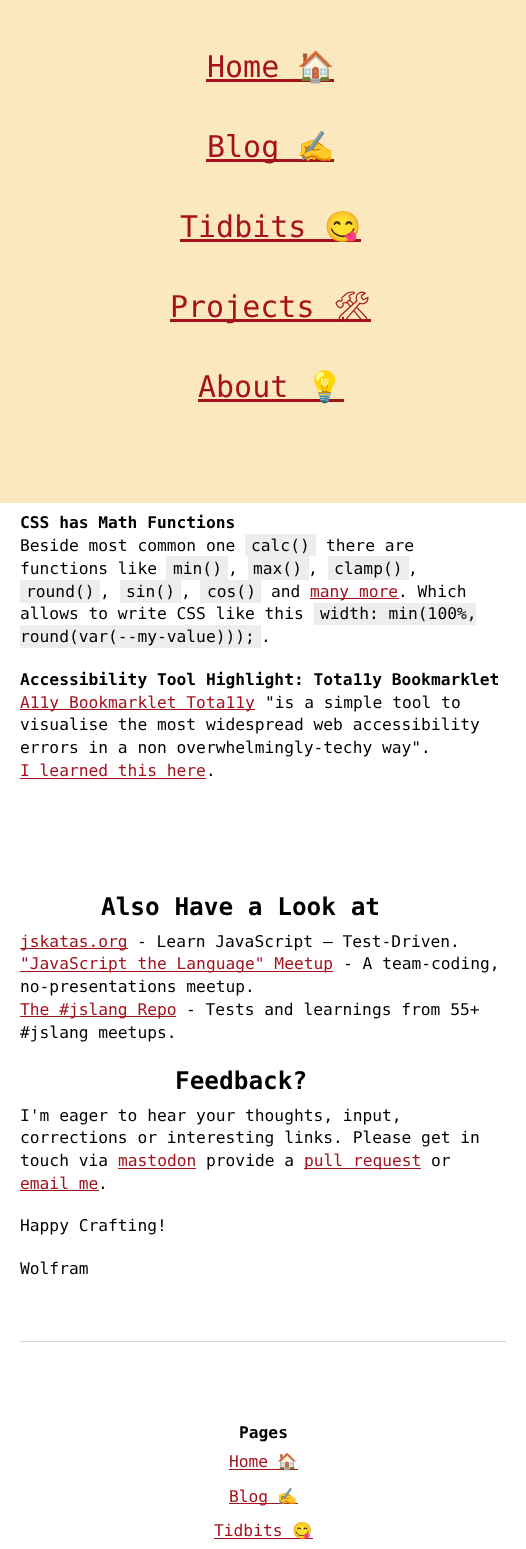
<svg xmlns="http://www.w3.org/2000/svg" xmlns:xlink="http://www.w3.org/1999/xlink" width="526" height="1549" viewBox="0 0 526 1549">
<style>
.cls-1{font:30px DejaVu Sans Mono;fill:#a4131d}
.cls-2{font:30px Noto Color Emoji;fill:#a4131d}
.cls-3{font:30px Noto Emoji;fill:#a4131d}
.cls-4{font:bold 16.25px DejaVu Sans Mono;fill:#000000}
.cls-5{font:16.25px DejaVu Sans Mono;fill:#000000}
.cls-6{font:16.25px DejaVu Sans Mono;fill:#a4131d}
.cls-7{font:bold 24.4px DejaVu Sans Mono;fill:#000000}
.cls-8{font:16.25px Noto Color Emoji;fill:#a4131d}
</style>
<rect width="100%" height="100%" fill="#ffffff"/>
<rect fill="#fce8bf" x="0" y="0" width="526" height="503"/>
<rect fill="#a4131d" x="206" y="79" width="128" height="3"/>
<rect fill="#a4131d" x="206" y="159" width="128" height="3"/>
<rect fill="#a4131d" x="180" y="239" width="181" height="3"/>
<rect fill="#a4131d" x="170" y="319" width="201" height="3"/>
<rect fill="#a4131d" x="198" y="399" width="146" height="3"/>
<rect fill="#ededed" x="245" y="534" width="71" height="22"/>
<rect fill="#ededed" x="166" y="556" width="62" height="24"/>
<rect fill="#ededed" x="248" y="556" width="61" height="24"/>
<rect fill="#ededed" x="328" y="556" width="81" height="24"/>
<rect fill="#ededed" x="20" y="580" width="80" height="23"/>
<rect fill="#ededed" x="120" y="580" width="61" height="23"/>
<rect fill="#ededed" x="200" y="580" width="61" height="23"/>
<rect fill="#a4131d" x="310" y="598" width="89" height="1"/>
<rect fill="#ededed" x="314" y="603" width="162" height="22"/>
<rect fill="#ededed" x="20" y="625" width="241" height="23"/>
<rect fill="#a4131d" x="20" y="709" width="235" height="1"/>
<rect fill="#a4131d" x="20" y="778" width="186" height="1"/>
<rect fill="#a4131d" x="20" y="948" width="108" height="1"/>
<rect fill="#a4131d" x="20" y="971" width="313" height="1"/>
<rect fill="#a4131d" x="20" y="1016" width="156" height="1"/>
<rect fill="#a4131d" x="118" y="1168" width="78" height="1"/>
<rect fill="#a4131d" x="304" y="1168" width="117" height="1"/>
<rect fill="#a4131d" x="20" y="1190" width="79" height="1"/>
<rect fill="#d3d3d3" x="20" y="1341" width="486" height="1"/>
<rect fill="#a4131d" x="229" y="1469" width="69" height="1"/>
<rect fill="#a4131d" x="229" y="1503" width="69" height="1"/>
<rect fill="#a4131d" x="214" y="1538" width="99" height="1"/>
<text class="cls-1" x="207" y="77">Home</text>
<text class="cls-2" x="297" y="77">🏠</text>
<text class="cls-1" x="207" y="157">Blog</text>
<text class="cls-2" x="297" y="157">✍️</text>
<text class="cls-1" x="180" y="237">Tidbits</text>
<text class="cls-2" x="324" y="237">😋</text>
<text class="cls-1" x="170" y="317">Projects</text>
<text class="cls-3" x="333" y="317">🛠‍‍</text>
<text class="cls-1" x="198" y="397">About</text>
<text class="cls-2" x="306" y="397">💡</text>
<text class="cls-4" x="20" y="528">CSS has Math Functions</text>
<text class="cls-5" x="20" y="551">Beside most common one</text>
<text class="cls-5" x="251" y="551">calc()</text>
<text class="cls-5" x="326" y="551">there are</text>
<text class="cls-5" x="20" y="574">functions like</text>
<text class="cls-5" x="173" y="574">min()</text>
<text class="cls-5" x="228" y="574">,</text>
<text class="cls-5" x="253" y="574">max()</text>
<text class="cls-5" x="308" y="574">,</text>
<text class="cls-5" x="334" y="574">clamp()</text>
<text class="cls-5" x="408" y="574">,</text>
<text class="cls-5" x="26" y="597">round()</text>
<text class="cls-5" x="100" y="597">,</text>
<text class="cls-5" x="126" y="597">sin()</text>
<text class="cls-5" x="181" y="597">,</text>
<text class="cls-5" x="207" y="597">cos()</text>
<text class="cls-5" x="271" y="597">and</text>
<text class="cls-6" x="310" y="597">many more</text>
<text class="cls-5" x="398" y="597">. Which</text>
<text class="cls-5" x="20" y="619">allows to write CSS like this</text>
<text class="cls-5" x="320" y="619">width: min(100%,</text>
<text class="cls-5" x="20" y="642">round(var(--my-value)));</text>
<text class="cls-5" x="261" y="642">.</text>
<text class="cls-4" x="20" y="685">Accessibility Tool Highlight: Tota11y Bookmarklet</text>
<text class="cls-6" x="20" y="708">A11y Bookmarklet Tota11y</text>
<text class="cls-5" x="265" y="708">"is a simple tool to</text>
<text class="cls-5"><tspan x="20" y="730">visualise the most widespread web accessibility</tspan><tspan x="20" y="753">errors in a non overwhelmingly-techy way".</tspan></text>
<text class="cls-6" x="20" y="776">I learned this here</text>
<text class="cls-5" x="206" y="776">.</text>
<text class="cls-7" x="101" y="915">Also Have a Look at</text>
<text class="cls-6" x="20" y="947">jskatas.org</text>
<text class="cls-5" x="137" y="947">- Learn JavaScript – Test-Driven.</text>
<text class="cls-6" x="20" y="969">"JavaScript the Language" Meetup</text>
<text class="cls-5" x="343" y="969">- A team-coding,</text>
<text class="cls-5" x="20" y="992">no-presentations meetup.</text>
<text class="cls-6" x="20" y="1015">The #jslang Repo</text>
<text class="cls-5" x="186" y="1015">- Tests and learnings from 55+</text>
<text class="cls-5" x="20" y="1038">#jslang meetups.</text>
<text class="cls-7" x="175" y="1089">Feedback?</text>
<text class="cls-5"><tspan x="20" y="1121">I'm eager to hear your thoughts, input,</tspan><tspan x="20" y="1143">corrections or interesting links. Please get in</tspan><tspan x="20" y="1166">touch via</tspan></text>
<text class="cls-6" x="118" y="1166">mastodon</text>
<text class="cls-5" x="206" y="1166">provide a</text>
<text class="cls-6" x="304" y="1166">pull request</text>
<text class="cls-5" x="431" y="1166">or</text>
<text class="cls-6" x="20" y="1189">email me</text>
<text class="cls-5" x="98" y="1189">.</text>
<text class="cls-5" x="20" y="1231">Happy Crafting!</text>
<text class="cls-5" x="20" y="1274">Wolfram</text>
<text class="cls-4" x="239" y="1438">Pages</text>
<text class="cls-6" x="229" y="1467">Home</text>
<text class="cls-8" x="277" y="1467">🏠</text>
<text class="cls-6" x="229" y="1502">Blog</text>
<text class="cls-8" x="277" y="1502">✍️</text>
<text class="cls-6" x="214" y="1536">Tidbits</text>
<text class="cls-8" x="292" y="1536">😋</text>
</svg>
